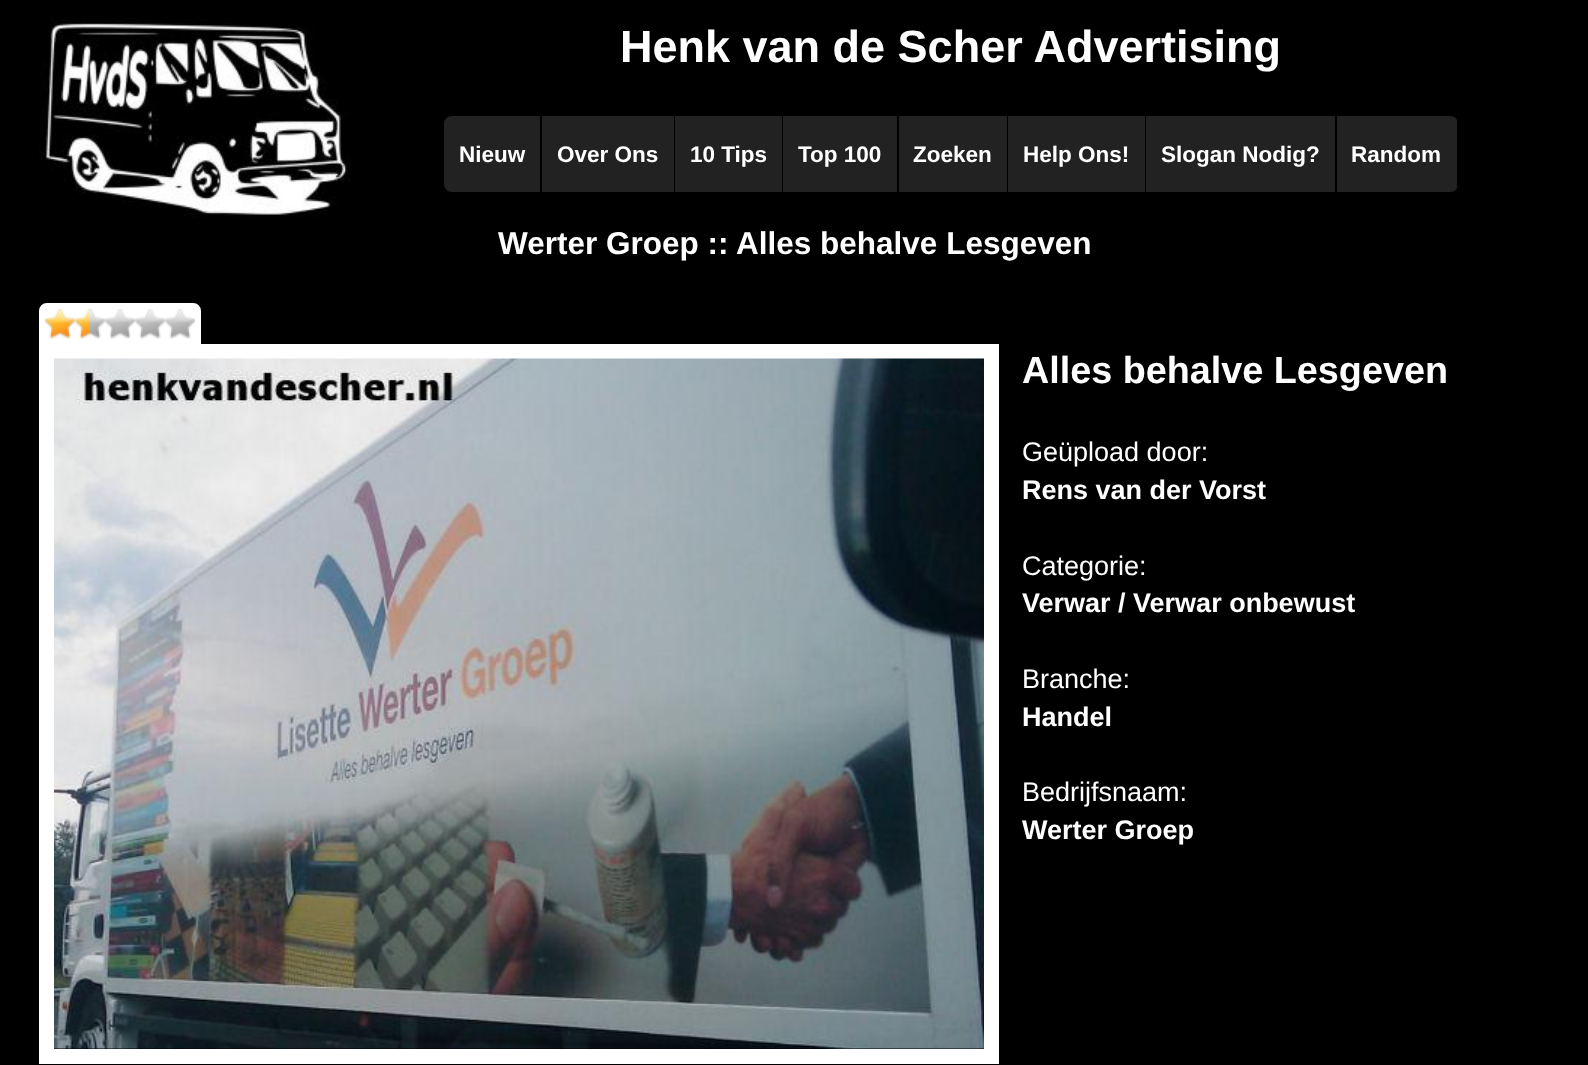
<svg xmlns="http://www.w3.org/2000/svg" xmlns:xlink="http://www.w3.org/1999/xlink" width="1588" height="1065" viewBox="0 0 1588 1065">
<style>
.cls-1{font:bold 45px Liberation Sans;fill:#ffffff}
.cls-2{font:bold 22.5px Liberation Sans;fill:#ffffff}
.cls-3{font:bold 31.5px Liberation Sans;fill:#ffffff}
.cls-4{font:bold 37.75px Liberation Sans;fill:#ffffff}
.cls-5{font:27px Liberation Sans;fill:#ffffff}
.cls-6{font:bold 27px Liberation Sans;fill:#ffffff}
</style>
<rect width="100%" height="100%" fill="#000000"/>
<image xlink:href="image0.png" x="39" y="17" width="312" height="200"/>
<path fill="#222222" d="M452 116H542V192H452C447.5 192 444 188.5 444 184V124C444 119.5 447.5 116 452 116Z"/>
<rect fill="#000000" x="540" y="116" width="2" height="76"/>
<rect fill="#222222" x="542" y="116" width="132" height="76"/>
<rect fill="#222222" x="675" y="116" width="107" height="76"/>
<rect fill="#222222" x="783" y="116" width="114" height="76"/>
<rect fill="#222222" x="899" y="116" width="108" height="76"/>
<rect fill="#222222" x="1008" y="116" width="137" height="76"/>
<rect fill="#222222" x="1146" y="116" width="189" height="76"/>
<path fill="#222222" d="M1337 116H1450C1454.5 116 1458 119.5 1458 124V184C1458 188.5 1454.5 192 1450 192H1337Z"/>
<rect fill="#000000" x="1457" y="120" width="1" height="69"/>
<rect fill="none" stroke="#ffffff" stroke-width="15" x="46.5" y="351.5" width="945" height="705"/>
<path fill="none" stroke="#ffffff" stroke-width="6" d="M47 306H193C196 306 198 308 198 311V342H42V311C42 308 44 306 47 306Z"/>
<image xlink:href="image1.png" x="45" y="309" width="45" height="30"/>
<image xlink:href="image2.png" x="90" y="309" width="105" height="30"/>
<image xlink:href="image3.png" x="54" y="358" width="930" height="691"/>
<text class="cls-1" x="620" y="62">Henk van de Scher Advertising</text>
<text class="cls-2" x="459" y="162">Nieuw</text>
<text class="cls-2" x="557" y="162">Over Ons</text>
<text class="cls-2" x="690" y="162">10 Tips</text>
<text class="cls-2" x="798" y="162">Top 100</text>
<text class="cls-2" x="913" y="162">Zoeken</text>
<text class="cls-2" x="1023" y="162">Help Ons!</text>
<text class="cls-2" x="1161" y="162">Slogan Nodig?</text>
<text class="cls-2" x="1351" y="162">Random</text>
<text class="cls-3" x="498" y="254">Werter Groep :: Alles behalve Lesgeven</text>
<text class="cls-4" x="1022" y="383">Alles behalve Lesgeven</text>
<text class="cls-5" x="1022" y="461">Geüpload door:</text>
<text class="cls-6" x="1022" y="499">Rens van der Vorst</text>
<text class="cls-5" x="1022" y="575">Categorie:</text>
<text class="cls-6" x="1022" y="612">Verwar / Verwar onbewust</text>
<text class="cls-5" x="1022" y="688">Branche:</text>
<text class="cls-6" x="1022" y="726">Handel</text>
<text class="cls-5" x="1022" y="801">Bedrijfsnaam:</text>
<text class="cls-6" x="1022" y="839">Werter Groep</text>
</svg>
